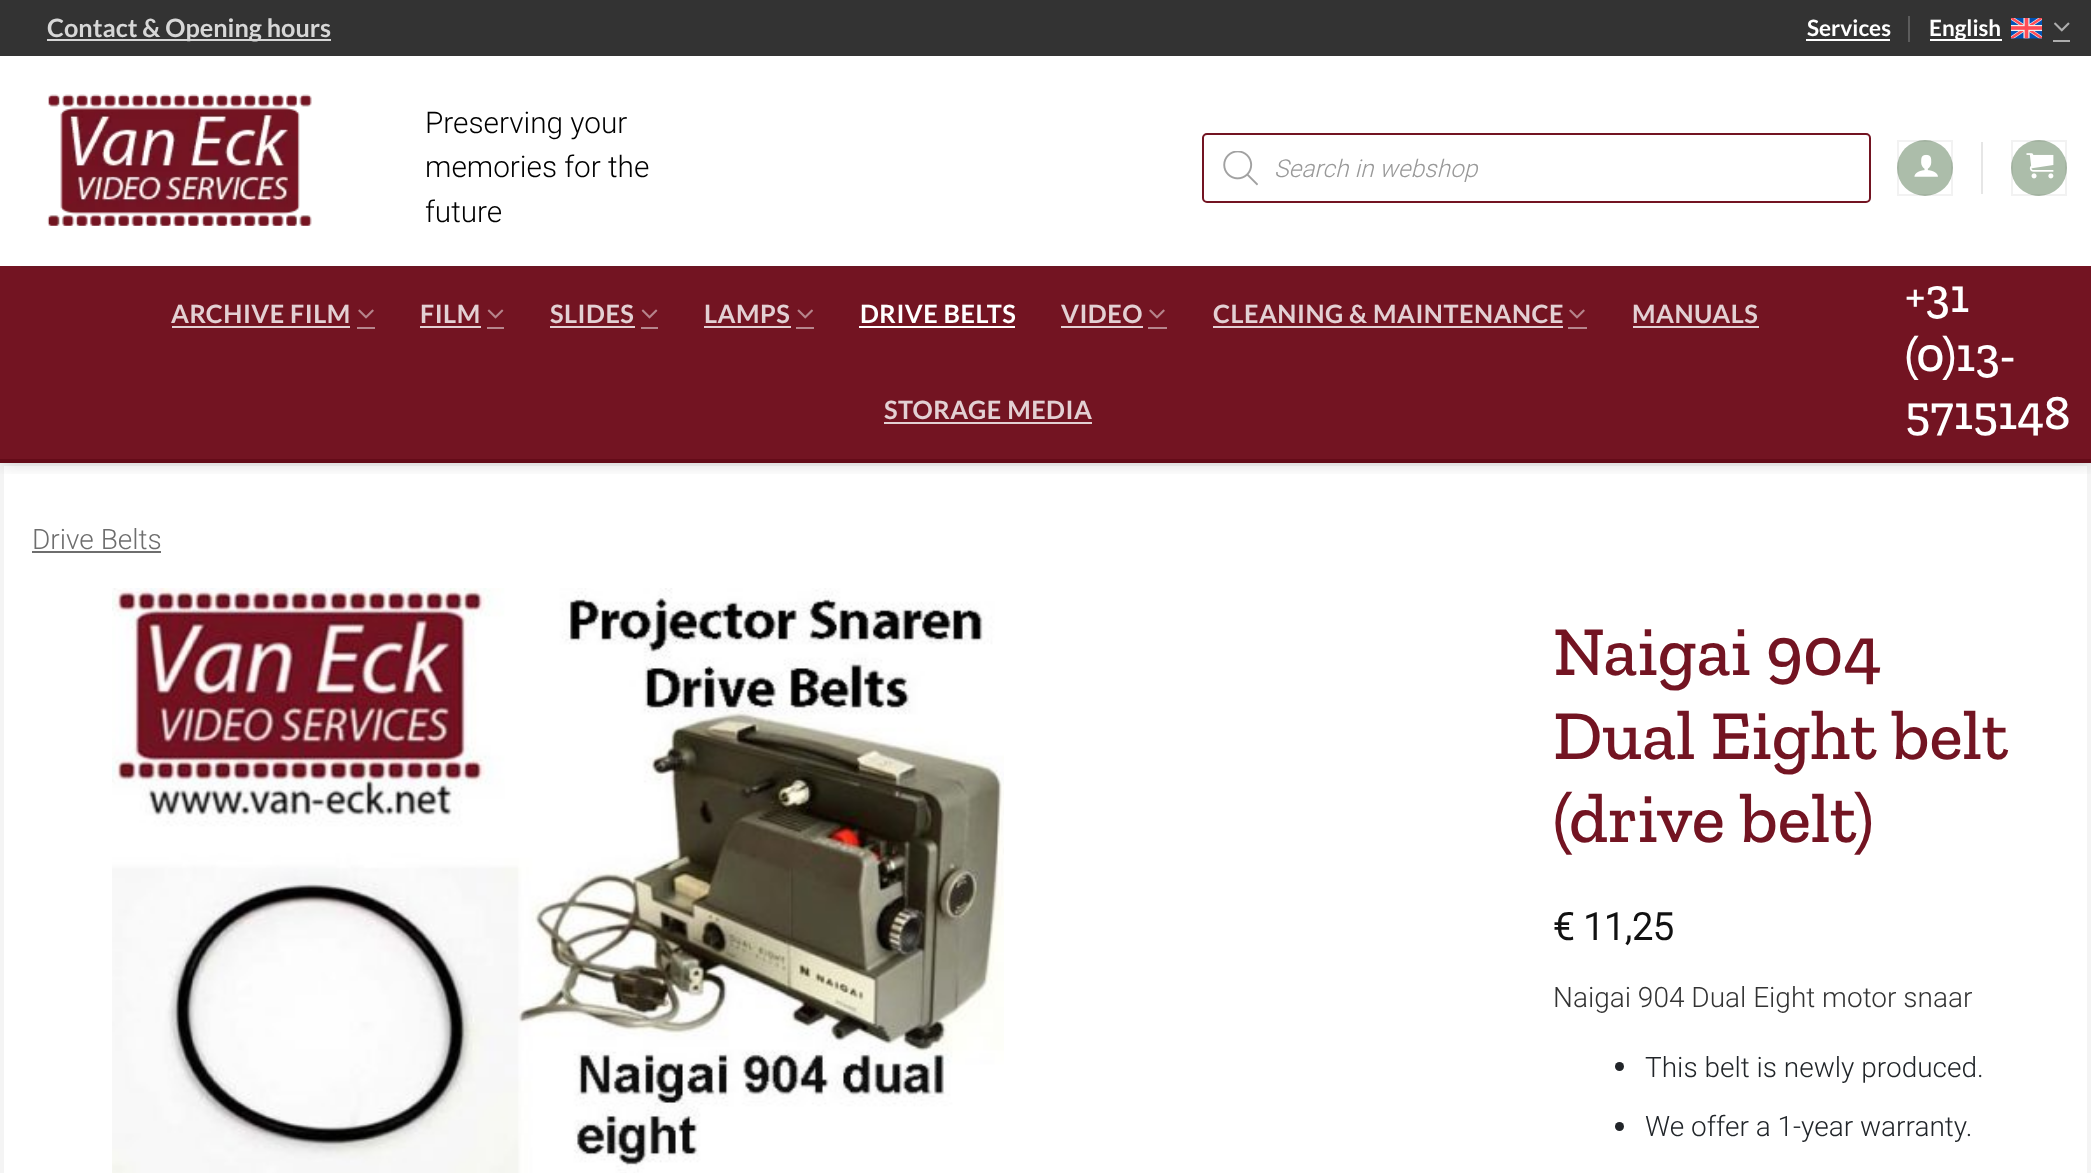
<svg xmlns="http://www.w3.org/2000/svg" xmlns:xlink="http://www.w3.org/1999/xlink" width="2091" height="1173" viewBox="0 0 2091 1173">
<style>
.cls-1{font:bold 25.25px Lato;fill:#d7d7d7}
.cls-2{font:bold 22.5px Lato;fill:#ffffff}
.cls-3{font:300 29.75px Roboto;fill:#000000}
.cls-4{font:italic 300 24.5px Roboto;fill:#999999}
.cls-5{font:bold 25.25px Lato;letter-spacing:0.5px;fill:#e3d0d3}
.cls-6{font:bold 25.25px Lato;letter-spacing:0.5px;fill:#ffffff}
.cls-7{font:500 49px Zilla Slab;fill:#ffffff}
.cls-8{font:300 28px Roboto;fill:#6e6e6e}
.cls-9{font:500 70px Zilla Slab;fill:#731422}
.cls-10{font:bold 37.5px Roboto;fill:#111111}
.cls-11{font:300 28px Roboto;fill:#333333}
.cls-12{font:300 28px Roboto;fill:#212529}
</style>
<defs>
<clipPath id="clip1"><rect x="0" y="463" width="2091" height="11"/></clipPath>
</defs>
<rect width="100%" height="100%" fill="#ffffff"/>
<rect fill="none" stroke="#f4f4f4" stroke-width="4" x="2" y="464" width="2087" height="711"/>
<g clip-path="url(#clip1)">
<rect fill="#000000" fill-opacity="0.15" filter="blur(9px)" x="2" y="2" width="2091" height="462"/>
</g>
<rect fill="#333333" x="0" y="0" width="2091" height="56"/>
<rect fill="#d6d6d6" x="47" y="39" width="284" height="2"/>
<rect fill="#ffffff" x="1806" y="39" width="84" height="2"/>
<rect fill="#5c5c5c" x="1908" y="16" width="2" height="26"/>
<rect fill="#ffffff" x="1930" y="39" width="72" height="2"/>
<image xlink:href="image0.png" x="2011" y="18" width="31" height="21"/>
<image xlink:href="image1.png" x="2054" y="22" width="16" height="10"/>
<rect fill="#adadad" x="2053" y="40" width="17" height="2"/>
<image xlink:href="image2.png" x="47" y="94" width="265" height="132"/>
<rect fill="none" stroke="#731422" stroke-width="2" x="1203" y="134" width="667" height="68" rx="4"/>
<image xlink:href="image3.png" x="1223" y="151" width="35" height="35"/>
<circle fill="#acbdaa" cx="1925" cy="168" r="28"/>
<rect fill="none" stroke="#000000" stroke-opacity="0.05" stroke-width="2" x="1898" y="141" width="54" height="54"/>
<image xlink:href="image4.png" x="1914" y="154" width="24" height="23"/>
<rect fill="#e6e6e6" x="1981" y="142" width="2" height="52"/>
<circle fill="#acbdaa" cx="2039" cy="168" r="28"/>
<rect fill="none" stroke="#000000" stroke-opacity="0.05" stroke-width="2" x="2012" y="141" width="54" height="54"/>
<image xlink:href="image5.png" x="2026" y="153" width="28" height="26"/>
<rect fill="#731422" x="0" y="266" width="2091" height="193"/>
<rect fill="#6b1623" x="21" y="266" width="2049" height="2"/>
<rect fill="#640b18" x="0" y="459" width="2091" height="4"/>
<rect fill="#e3d0d3" x="172" y="326" width="178" height="2"/>
<image xlink:href="image6.png" x="358" y="309" width="16" height="10"/>
<rect fill="#b6858c" x="357" y="327" width="18" height="2"/>
<rect fill="#e3d0d3" x="420" y="326" width="61" height="2"/>
<image xlink:href="image7.png" x="487" y="309" width="17" height="10"/>
<rect fill="#b6858c" x="487" y="327" width="17" height="2"/>
<rect fill="#e3d0d3" x="550" y="326" width="85" height="2"/>
<image xlink:href="image7.png" x="641" y="309" width="17" height="10"/>
<rect fill="#b6858c" x="641" y="327" width="17" height="2"/>
<rect fill="#e3d0d3" x="704" y="326" width="87" height="2"/>
<image xlink:href="image8.png" x="797" y="309" width="16" height="10"/>
<rect fill="#b6858c" x="796" y="327" width="18" height="2"/>
<rect fill="#ffffff" x="859" y="326" width="156" height="2"/>
<rect fill="#e3d0d3" x="1061" y="326" width="82" height="2"/>
<image xlink:href="image6.png" x="1149" y="309" width="16" height="10"/>
<rect fill="#b6858c" x="1148" y="327" width="19" height="2"/>
<rect fill="#e3d0d3" x="1213" y="326" width="350" height="2"/>
<image xlink:href="image6.png" x="1569" y="309" width="16" height="10"/>
<rect fill="#b6858c" x="1568" y="327" width="19" height="2"/>
<rect fill="#e3d0d3" x="1633" y="326" width="126" height="2"/>
<rect fill="#e3d0d3" x="884" y="422" width="208" height="2"/>
<rect fill="#6e6e6e" x="32" y="551" width="129" height="2"/>
<image xlink:href="image9.png" x="112" y="588" width="892" height="585"/>
<circle fill="#212529" cx="1619.5" cy="1066.5" r="4.5"/>
<circle fill="#212529" cx="1619.5" cy="1126.5" r="4.5"/>
<text class="cls-1" x="47" y="37">Contact &amp; Opening hours</text>
<text class="cls-2" x="1807" y="36">Services</text>
<text class="cls-2" x="1929" y="36">English</text>
<text class="cls-3"><tspan x="425" y="133">Preserving your</tspan><tspan x="425" y="177">memories for the</tspan><tspan x="425" y="222">future</tspan></text>
<text class="cls-4" x="1274" y="177">Search in webshop</text>
<text class="cls-5" x="171" y="323">ARCHIVE FILM</text>
<text class="cls-5" x="420" y="323">FILM</text>
<text class="cls-5" x="550" y="323">SLIDES</text>
<text class="cls-5" x="704" y="323">LAMPS</text>
<text class="cls-6" x="860" y="323">DRIVE BELTS</text>
<text class="cls-5" x="1061" y="323">VIDEO</text>
<text class="cls-5" x="1213" y="323">CLEANING &amp; MAINTENANCE</text>
<text class="cls-5" x="1632" y="323">MANUALS</text>
<text class="cls-5" x="884" y="419">STORAGE MEDIA</text>
<text class="cls-7"><tspan x="1905" y="312">+31</tspan><tspan x="1905" y="371">(0)13-</tspan><tspan x="1905" y="429">5715148</tspan></text>
<text class="cls-8" x="32" y="549">Drive Belts</text>
<text class="cls-9"><tspan x="1553" y="675">Naigai 904</tspan><tspan x="1553" y="759">Dual Eight belt</tspan><tspan x="1553" y="842">(drive belt)</tspan></text>
<text class="cls-10" x="1553" y="940">€ 11,25</text>
<text class="cls-11" x="1553" y="1007">Naigai 904 Dual Eight motor snaar</text>
<text class="cls-12" x="1645" y="1077">This belt is newly produced.</text>
<text class="cls-12" x="1645" y="1136">We offer a 1-year warranty.</text>
</svg>
